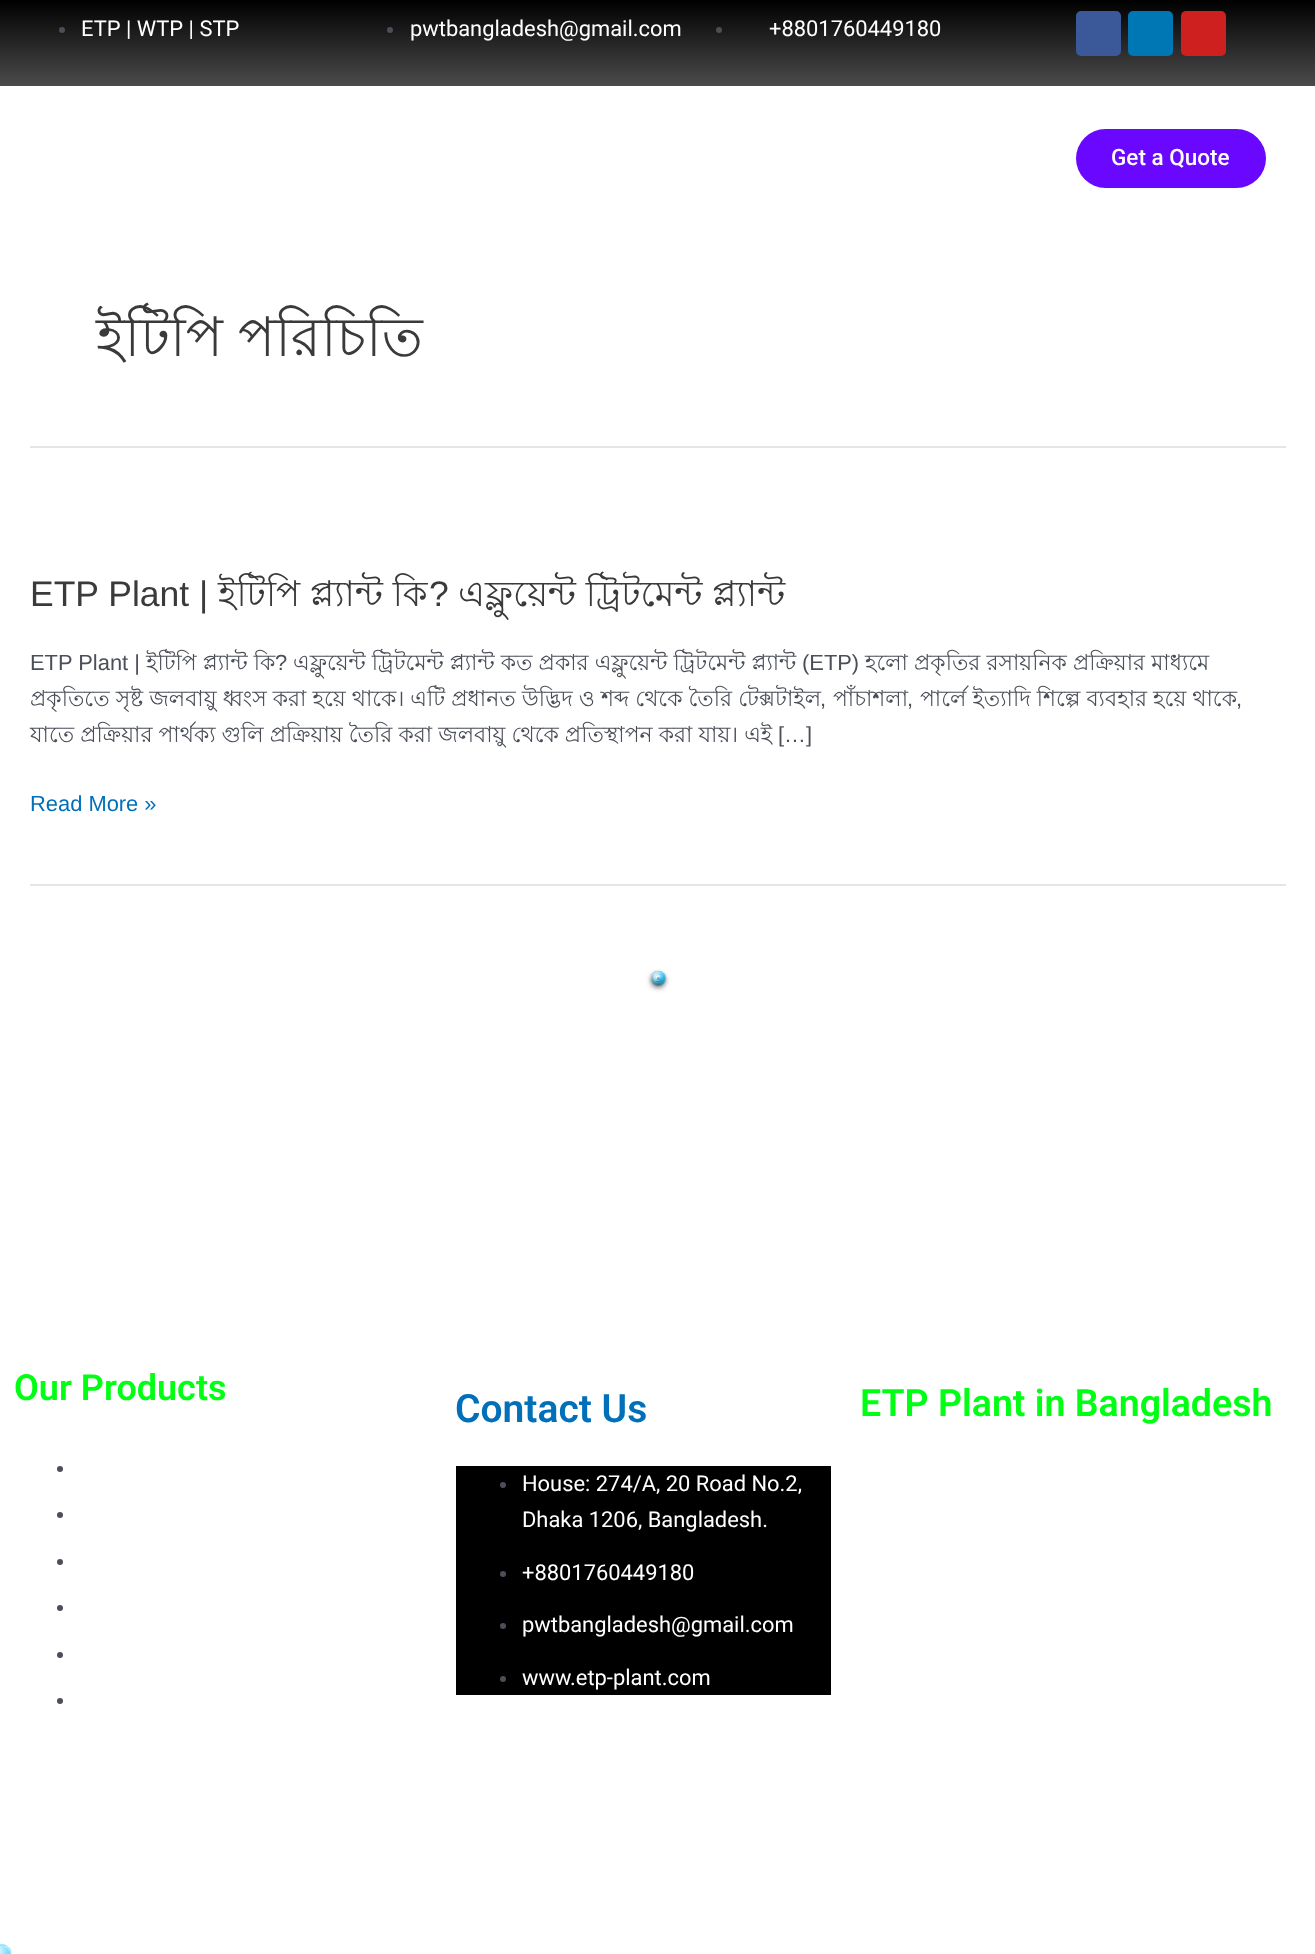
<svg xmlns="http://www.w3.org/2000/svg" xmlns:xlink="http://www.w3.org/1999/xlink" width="1315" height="1954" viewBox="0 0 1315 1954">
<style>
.cls-1{font:21.9px Roboto;fill:#ffffff}
.cls-2{font:500 22.5px Roboto;fill:#ffffff}
.cls-3{font:54.75px Lohit Bengali;fill:#3a3a3a}
.cls-4{font:35.5px Liberation Sans;fill:#3a3a3a}
.cls-5{font:35.5px Lohit Bengali;fill:#3a3a3a}
.cls-6{font:21.9px Liberation Sans;fill:#4b4f58}
.cls-7{font:21.9px Lohit Bengali;fill:#4b4f58}
.cls-8{font:21.9px Liberation Sans;fill:#0170b9}
.cls-9{font:600 36px Roboto;fill:#00ff13}
.cls-10{font:600 39px Roboto;fill:#0170b9}
.cls-11{font:600 37.5px Roboto;fill:#00ff13}
</style>
<defs>
<linearGradient id="g1" gradientUnits="userSpaceOnUse" x1="658" y1="0" x2="658" y2="86"><stop offset="0" stop-color="#000000"/><stop offset="1" stop-color="#4c4b4b"/></linearGradient>
<clipPath id="clip1"><path d="M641 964H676V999H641ZM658.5 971C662.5 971 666 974.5 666 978.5C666 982.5 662.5 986 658.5 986C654.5 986 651 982.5 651 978.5C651 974.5 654.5 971 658.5 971Z" clip-rule="evenodd"/></clipPath>
<radialGradient id="g2" gradientUnits="userSpaceOnUse" cx="656" cy="975" r="15"><stop offset="0" stop-color="#ffffff" stop-opacity="0.8"/><stop offset="1" stop-color="#ffffff" stop-opacity="0"/></radialGradient>
<clipPath id="clip2"><path d="M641 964H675V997H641ZM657.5 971H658.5C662 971 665 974 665 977.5C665 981 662 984 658.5 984H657.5C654 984 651 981 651 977.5C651 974 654 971 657.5 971Z" clip-rule="evenodd"/></clipPath>
<radialGradient id="g3" gradientUnits="userSpaceOnUse" cx="655" cy="974" r="14"><stop offset="0" stop-color="#ffffff" stop-opacity="0.8"/><stop offset="1" stop-color="#ffffff" stop-opacity="0"/></radialGradient>
<clipPath id="clip3"><path d="M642 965H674V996H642ZM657.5 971H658.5C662 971 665 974 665 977.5C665 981 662 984 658.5 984H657.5C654 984 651 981 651 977.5C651 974 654 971 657.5 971Z" clip-rule="evenodd"/></clipPath>
<radialGradient id="g4" gradientUnits="userSpaceOnUse" cx="655" cy="975" r="13"><stop offset="0" stop-color="#ffffff" stop-opacity="0.8"/><stop offset="1" stop-color="#ffffff" stop-opacity="0"/></radialGradient>
<clipPath id="clip4"><path d="M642 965H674V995H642ZM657.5 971H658.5C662 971 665 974 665 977.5C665 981 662 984 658.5 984H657.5C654 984 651 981 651 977.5C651 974 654 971 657.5 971Z" clip-rule="evenodd"/></clipPath>
<radialGradient id="g5" gradientUnits="userSpaceOnUse" cx="655" cy="975" r="12"><stop offset="0" stop-color="#ffffff" stop-opacity="0.8"/><stop offset="1" stop-color="#ffffff" stop-opacity="0"/></radialGradient>
<clipPath id="clip5"><path d="M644 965H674V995H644ZM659 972C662.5 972 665 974.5 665 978C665 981.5 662.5 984 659 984C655.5 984 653 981.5 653 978C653 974.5 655.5 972 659 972Z" clip-rule="evenodd"/></clipPath>
<clipPath id="clip6"><path d="M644 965H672V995H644ZM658 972C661 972 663 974 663 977V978C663 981 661 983 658 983C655 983 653 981 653 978V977C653 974 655 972 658 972Z" clip-rule="evenodd"/></clipPath>
<radialGradient id="g6" gradientUnits="userSpaceOnUse" cx="655" cy="975" r="11"><stop offset="0" stop-color="#ffffff" stop-opacity="0.8"/><stop offset="1" stop-color="#ffffff" stop-opacity="0"/></radialGradient>
<clipPath id="clip7"><path d="M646 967H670V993H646ZM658 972C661 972 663 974 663 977V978C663 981 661 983 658 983C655 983 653 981 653 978V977C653 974 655 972 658 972Z" clip-rule="evenodd"/></clipPath>
<radialGradient id="g7" gradientUnits="userSpaceOnUse" cx="656" cy="975" r="11"><stop offset="0" stop-color="#ffffff" stop-opacity="0.8"/><stop offset="1" stop-color="#ffffff" stop-opacity="0"/></radialGradient>
<clipPath id="clip8"><path d="M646 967H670V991H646ZM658 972C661 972 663 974 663 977V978C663 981 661 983 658 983C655 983 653 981 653 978V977C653 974 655 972 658 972Z" clip-rule="evenodd"/></clipPath>
<radialGradient id="g8" gradientUnits="userSpaceOnUse" cx="656" cy="975" r="10"><stop offset="0" stop-color="#ffffff" stop-opacity="0.8"/><stop offset="1" stop-color="#ffffff" stop-opacity="0"/></radialGradient>
<clipPath id="clip9"><path d="M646 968H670V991H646ZM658 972C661 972 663 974 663 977V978C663 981 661 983 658 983C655 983 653 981 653 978V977C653 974 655 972 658 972Z" clip-rule="evenodd"/></clipPath>
<clipPath id="clip10"><path d="M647 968H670V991H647ZM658.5 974C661 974 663 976 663 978.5C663 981 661 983 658.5 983C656 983 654 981 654 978.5C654 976 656 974 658.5 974Z" clip-rule="evenodd"/></clipPath>
<radialGradient id="g9" gradientUnits="userSpaceOnUse" cx="656" cy="975" r="9"><stop offset="0" stop-color="#ffffff" stop-opacity="0.8"/><stop offset="1" stop-color="#ffffff" stop-opacity="0"/></radialGradient>
<clipPath id="clip11"><path d="M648 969H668V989H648ZM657.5 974H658.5C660.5 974 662 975.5 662 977.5C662 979.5 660.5 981 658.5 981H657.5C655.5 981 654 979.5 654 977.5C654 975.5 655.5 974 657.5 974Z" clip-rule="evenodd"/></clipPath>
<radialGradient id="g10" gradientUnits="userSpaceOnUse" cx="656" cy="976" r="8"><stop offset="0" stop-color="#ffffff" stop-opacity="0.8"/><stop offset="1" stop-color="#ffffff" stop-opacity="0"/></radialGradient>
<radialGradient id="g11" gradientUnits="userSpaceOnUse" cx="656" cy="976" r="7.7"><stop offset="0" stop-color="#ffffff" stop-opacity="0.8"/><stop offset="1" stop-color="#ffffff" stop-opacity="0"/></radialGradient>
<radialGradient id="g12" gradientUnits="userSpaceOnUse" cx="656" cy="976" r="7.1"><stop offset="0" stop-color="#ffffff" stop-opacity="0.8"/><stop offset="1" stop-color="#ffffff" stop-opacity="0"/></radialGradient>
<radialGradient id="g13" gradientUnits="userSpaceOnUse" cx="656" cy="976" r="6.5"><stop offset="0" stop-color="#ffffff" stop-opacity="0.8"/><stop offset="1" stop-color="#ffffff" stop-opacity="0"/></radialGradient>
<clipPath id="clip12"><path d="M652 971H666V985H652ZM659 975C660.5 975 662 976.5 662 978C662 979.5 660.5 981 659 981C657.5 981 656 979.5 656 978C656 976.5 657.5 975 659 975Z" clip-rule="evenodd"/></clipPath>
<radialGradient id="g14" gradientUnits="userSpaceOnUse" cx="657" cy="976" r="5.9"><stop offset="0" stop-color="#ffffff" stop-opacity="0.8"/><stop offset="1" stop-color="#ffffff" stop-opacity="0"/></radialGradient>
<clipPath id="clip13"><path d="M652 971H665V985H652ZM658.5 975C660 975 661 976 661 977.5C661 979 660 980 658.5 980C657 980 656 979 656 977.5C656 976 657 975 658.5 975Z" clip-rule="evenodd"/></clipPath>
<radialGradient id="g15" gradientUnits="userSpaceOnUse" cx="657" cy="976" r="5.3"><stop offset="0" stop-color="#ffffff" stop-opacity="0.8"/><stop offset="1" stop-color="#ffffff" stop-opacity="0"/></radialGradient>
<clipPath id="clip14"><path d="M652 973H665V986H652ZM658.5 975C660 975 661 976 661 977.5C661 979 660 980 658.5 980C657 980 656 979 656 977.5C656 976 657 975 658.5 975Z" clip-rule="evenodd"/></clipPath>
<radialGradient id="g16" gradientUnits="userSpaceOnUse" cx="657" cy="976" r="4.8"><stop offset="0" stop-color="#ffffff" stop-opacity="0.8"/><stop offset="1" stop-color="#ffffff" stop-opacity="0"/></radialGradient>
<clipPath id="clip15"><path d="M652 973H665V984H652ZM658.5 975C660 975 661 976 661 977.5C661 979 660 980 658.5 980C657 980 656 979 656 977.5C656 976 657 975 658.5 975Z" clip-rule="evenodd"/></clipPath>
<radialGradient id="g17" gradientUnits="userSpaceOnUse" cx="657" cy="976" r="4.2"><stop offset="0" stop-color="#ffffff" stop-opacity="0.8"/><stop offset="1" stop-color="#ffffff" stop-opacity="0"/></radialGradient>
<radialGradient id="g18" gradientUnits="userSpaceOnUse" cx="657" cy="977" r="3.6"><stop offset="0" stop-color="#ffffff" stop-opacity="0.8"/><stop offset="1" stop-color="#ffffff" stop-opacity="0"/></radialGradient>
<radialGradient id="g19" gradientUnits="userSpaceOnUse" cx="657" cy="977" r="3"><stop offset="0" stop-color="#ffffff" stop-opacity="0.8"/><stop offset="1" stop-color="#ffffff" stop-opacity="0"/></radialGradient>
<radialGradient id="g20" gradientUnits="userSpaceOnUse" cx="657" cy="977" r="2.4"><stop offset="0" stop-color="#ffffff" stop-opacity="0.8"/><stop offset="1" stop-color="#ffffff" stop-opacity="0"/></radialGradient>
<radialGradient id="g21" gradientUnits="userSpaceOnUse" cx="657" cy="977" r="1.8"><stop offset="0" stop-color="#ffffff" stop-opacity="0.8"/><stop offset="1" stop-color="#ffffff" stop-opacity="0"/></radialGradient>
<radialGradient id="g22" gradientUnits="userSpaceOnUse" cx="658" cy="977" r="1.2"><stop offset="0" stop-color="#ffffff" stop-opacity="0.8"/><stop offset="1" stop-color="#ffffff" stop-opacity="0"/></radialGradient>
</defs>
<rect width="100%" height="100%" fill="#ffffff"/>
<rect fill="url(#g1)" x="0" y="0" width="1315" height="86"/>
<circle fill="#4b4f58" cx="62" cy="30" r="3"/>
<circle fill="#4b4f58" cx="390" cy="30" r="3"/>
<circle fill="#4b4f58" cx="719" cy="30" r="3"/>
<rect fill="#3b5998" x="1076" y="11" width="45" height="45" rx="5"/>
<rect fill="#0077b5" x="1128" y="11" width="45" height="45" rx="5"/>
<rect fill="#cd201f" x="1181" y="11" width="45" height="45" rx="5"/>
<rect fill="#6a08ff" x="1076" y="129" width="190" height="59" rx="29.5"/>
<rect fill="#e5e5e5" x="30" y="446" width="1256" height="2"/>
<rect fill="#e5e5e5" x="30" y="884" width="1256" height="2"/>
<circle fill="#4b4f58" cx="60" cy="1469" r="3"/>
<circle fill="#4b4f58" cx="60" cy="1515" r="3"/>
<circle fill="#4b4f58" cx="60" cy="1562" r="3"/>
<circle fill="#4b4f58" cx="60" cy="1608" r="3"/>
<circle fill="#4b4f58" cx="60" cy="1655" r="3"/>
<circle fill="#4b4f58" cx="60" cy="1701" r="3"/>
<rect fill="#000000" x="456" y="1466" width="375" height="229"/>
<circle fill="#4b4f58" cx="503" cy="1485" r="3"/>
<circle fill="#4b4f58" cx="503" cy="1574" r="3"/>
<circle fill="#4b4f58" cx="503" cy="1626" r="3"/>
<circle fill="#4b4f58" cx="503" cy="1679" r="3"/>
<g clip-path="url(#clip1)">
<rect fill="#000000" fill-opacity="0.1" filter="blur(3px)" x="651" y="974" width="15" height="15" rx="7.5"/>
</g>
<circle fill="#00bfff" fill-opacity="0.6" cx="658.5" cy="978.5" r="7.5"/>
<circle fill="url(#g2)" cx="658.5" cy="978.5" r="7.5"/>
<g clip-path="url(#clip2)">
<rect fill="#000000" fill-opacity="0.1" filter="blur(3px)" x="651" y="974" width="14" height="13" rx="6.5"/>
</g>
<rect fill="#00bfff" fill-opacity="0.58" x="651" y="971" width="14" height="13" rx="6.5"/>
<rect fill="url(#g3)" x="651" y="971" width="14" height="13" rx="6.5"/>
<g clip-path="url(#clip2)">
<rect fill="#000000" fill-opacity="0.1" filter="blur(3px)" x="651" y="974" width="14" height="13" rx="6.5"/>
</g>
<rect fill="#00bfff" fill-opacity="0.55" x="651" y="971" width="14" height="13" rx="6.5"/>
<rect fill="url(#g3)" x="651" y="971" width="14" height="13" rx="6.5"/>
<g clip-path="url(#clip3)">
<rect fill="#000000" fill-opacity="0.1" filter="blur(2.5px)" x="651" y="974" width="14" height="13" rx="6.5"/>
</g>
<rect fill="#00bfff" fill-opacity="0.53" x="651" y="971" width="14" height="13" rx="6.5"/>
<rect fill="url(#g4)" x="651" y="971" width="14" height="13" rx="6.5"/>
<g clip-path="url(#clip4)">
<rect fill="#000000" fill-opacity="0.1" filter="blur(2.5px)" x="651" y="974" width="14" height="12" rx="6"/>
</g>
<rect fill="#00bfff" fill-opacity="0.51" x="651" y="971" width="14" height="13" rx="6.5"/>
<rect fill="url(#g5)" x="651" y="971" width="14" height="13" rx="6.5"/>
<g clip-path="url(#clip5)">
<rect fill="#000000" fill-opacity="0.1" filter="blur(2.5px)" x="653" y="974" width="12" height="12" rx="6"/>
</g>
<circle fill="#00bfff" fill-opacity="0.48" cx="659" cy="978" r="6"/>
<circle fill="url(#g5)" cx="659" cy="978" r="6"/>
<g clip-path="url(#clip6)">
<rect fill="#000000" fill-opacity="0.1" filter="blur(2.5px)" x="653" y="974" width="10" height="12" rx="5"/>
</g>
<rect fill="#00bfff" fill-opacity="0.46" x="653" y="972" width="10" height="11" rx="5"/>
<rect fill="url(#g6)" x="653" y="972" width="10" height="11" rx="5"/>
<g clip-path="url(#clip7)">
<rect fill="#000000" fill-opacity="0.1" filter="blur(2px)" x="653" y="974" width="10" height="12" rx="5"/>
</g>
<rect fill="#00bfff" fill-opacity="0.43" x="653" y="972" width="10" height="11" rx="5"/>
<rect fill="url(#g7)" x="653" y="972" width="10" height="11" rx="5"/>
<g clip-path="url(#clip8)">
<rect fill="#000000" fill-opacity="0.1" filter="blur(2px)" x="653" y="974" width="10" height="10" rx="5"/>
</g>
<rect fill="#00bfff" fill-opacity="0.41" x="653" y="972" width="10" height="11" rx="5"/>
<rect fill="url(#g8)" x="653" y="972" width="10" height="11" rx="5"/>
<g clip-path="url(#clip9)">
<rect fill="#000000" fill-opacity="0.1" filter="blur(2px)" x="653" y="975" width="10" height="9" rx="4.5"/>
</g>
<rect fill="#00bfff" fill-opacity="0.38" x="653" y="972" width="10" height="11" rx="5"/>
<rect fill="url(#g8)" x="653" y="972" width="10" height="11" rx="5"/>
<g clip-path="url(#clip10)">
<rect fill="#000000" fill-opacity="0.1" filter="blur(2px)" x="654" y="975" width="9" height="9" rx="4.5"/>
</g>
<circle fill="#00bfff" fill-opacity="0.36" cx="658.5" cy="978.5" r="4.5"/>
<circle fill="url(#g9)" cx="658.5" cy="978.5" r="4.5"/>
<g clip-path="url(#clip11)">
<rect fill="#000000" fill-opacity="0.1" filter="blur(1.5px)" x="654" y="975" width="8" height="8" rx="4"/>
</g>
<rect fill="#00bfff" fill-opacity="0.34" x="654" y="974" width="8" height="7" rx="3.5"/>
<rect fill="url(#g10)" x="654" y="974" width="8" height="7" rx="3.5"/>
<g clip-path="url(#clip11)">
<rect fill="#000000" fill-opacity="0.1" filter="blur(1.5px)" x="654" y="975" width="8" height="8" rx="4"/>
</g>
<rect fill="#00bfff" fill-opacity="0.31" x="654" y="974" width="8" height="7" rx="3.5"/>
<rect fill="url(#g11)" x="654" y="974" width="8" height="7" rx="3.5"/>
<g clip-path="url(#clip11)">
<rect fill="#000000" fill-opacity="0.1" filter="blur(1.5px)" x="654" y="975" width="8" height="8" rx="4"/>
</g>
<rect fill="#00bfff" fill-opacity="0.29" x="654" y="974" width="8" height="7" rx="3.5"/>
<rect fill="url(#g12)" x="654" y="974" width="8" height="7" rx="3.5"/>
<g clip-path="url(#clip11)">
<rect fill="#000000" fill-opacity="0.1" filter="blur(1.5px)" x="654" y="975" width="8" height="8" rx="4"/>
</g>
<rect fill="#00bfff" fill-opacity="0.26" x="654" y="974" width="8" height="7" rx="3.5"/>
<rect fill="url(#g13)" x="654" y="974" width="8" height="7" rx="3.5"/>
<g clip-path="url(#clip12)">
<rect fill="#000000" fill-opacity="0.1" filter="blur(1px)" x="656" y="975" width="6" height="6" rx="3"/>
</g>
<circle fill="#00bfff" fill-opacity="0.24" cx="659" cy="978" r="3"/>
<circle fill="url(#g14)" cx="659" cy="978" r="3"/>
<g clip-path="url(#clip13)">
<rect fill="#000000" fill-opacity="0.1" filter="blur(1px)" x="656" y="975" width="5" height="6" rx="2.5"/>
</g>
<circle fill="#00bfff" fill-opacity="0.22" cx="658.5" cy="977.5" r="2.5"/>
<circle fill="url(#g15)" cx="658.5" cy="977.5" r="2.5"/>
<g clip-path="url(#clip14)">
<rect fill="#000000" fill-opacity="0.1" filter="blur(1px)" x="656" y="977" width="5" height="5" rx="2.5"/>
</g>
<circle fill="#00bfff" fill-opacity="0.19" cx="658.5" cy="977.5" r="2.5"/>
<circle fill="url(#g16)" cx="658.5" cy="977.5" r="2.5"/>
<g clip-path="url(#clip15)">
<rect fill="#000000" fill-opacity="0.1" filter="blur(1px)" x="656" y="977" width="5" height="3" rx="1.5"/>
</g>
<circle fill="#00bfff" fill-opacity="0.17" cx="658.5" cy="977.5" r="2.5"/>
<circle fill="url(#g17)" cx="658.5" cy="977.5" r="2.5"/>
<rect fill="#000000" fill-opacity="0.1" filter="blur(0.5px)" x="656" y="977" width="5" height="3" rx="1.5"/>
<circle fill="#00bfff" fill-opacity="0.14" cx="658.5" cy="977.5" r="2.5"/>
<circle fill="url(#g18)" cx="658.5" cy="977.5" r="2.5"/>
<rect fill="#000000" fill-opacity="0.1" filter="blur(0.5px)" x="657" y="977" width="3" height="3" rx="1.5"/>
<rect fill="#00bfff" fill-opacity="0.12" x="657" y="977" width="3" height="3"/>
<circle fill="url(#g19)" cx="658.5" cy="978.5" r="1.5"/>
<rect fill="#000000" fill-opacity="0.1" filter="blur(0.5px)" x="657" y="977" width="2" height="3" rx="1"/>
<rect fill="#00bfff" fill-opacity="0.09" x="657" y="977" width="2" height="2"/>
<circle fill="url(#g20)" cx="658" cy="978" r="1"/>
<rect fill="#000000" fill-opacity="0.1" filter="blur(0.5px)" x="657" y="977" width="2" height="2" rx="1"/>
<rect fill="#00bfff" fill-opacity="0.07" x="657" y="977" width="2" height="2"/>
<circle fill="url(#g21)" cx="658" cy="978" r="1"/>
<rect fill="#000000" fill-opacity="0.1" filter="blur(0.5px)" x="657" y="977" width="2" height="2" rx="1"/>
<rect fill="#00bfff" fill-opacity="0.05" x="657" y="977" width="2" height="2"/>
<circle fill="url(#g22)" cx="658" cy="978" r="1"/>
<rect fill="#000000" fill-opacity="0.1" filter="blur(0.5px)" x="657" y="977" width="2" height="2" rx="1"/>
<image xlink:href="image0.png" x="0" y="1944" width="12" height="10"/>
<rect fill="none" stroke="#ffffff" stroke-opacity="0.4" stroke-width="2" x="-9" y="1945" width="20" height="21" rx="10"/>
<text class="cls-1" x="81" y="36">ETP | WTP | STP</text>
<text class="cls-1" x="410" y="36">pwtbangladesh@gmail.com</text>
<text class="cls-1" x="769" y="36">+8801760449180</text>
<text class="cls-2" x="1111" y="165">Get a Quote</text>
<text class="cls-3" x="96" y="356">ইটিপি পরিচিতি</text>
<text class="cls-4" x="30" y="606">ETP Plant |</text>
<text class="cls-5" x="218" y="606">ইটিপি প্ল্যান্ট কি</text>
<text class="cls-4" x="429" y="606">?</text>
<text class="cls-5" x="458" y="606">এফ্লুয়েন্ট ট্রিটমেন্ট প্ল্যান্ট</text>
<text class="cls-6" x="30" y="670">ETP Plant |</text>
<text class="cls-7" x="146" y="670">ইটিপি প্ল্যান্ট কি</text>
<text class="cls-6" x="275" y="670">?</text>
<text class="cls-7" x="293" y="670">এফ্লুয়েন্ট ট্রিটমেন্ট প্ল্যান্ট কত প্রকার এফ্লুয়েন্ট ট্রিটমেন্ট প্ল্যান্ট</text>
<text class="cls-6" x="802" y="670">(ETP)</text>
<text class="cls-7" x="865" y="670">হলো প্রকৃতির রসায়নিক প্রক্রিয়ার মাধ্যমে</text>
<text class="cls-7" x="30" y="706">প্রকৃতিতে সৃষ্ট জলবায়ু ধ্বংস করা হয়ে থাকে। এটি প্রধানত উদ্ভিদ ও শব্দ থেকে তৈরি টেক্সটাইল</text>
<text class="cls-6" x="820" y="706">,</text>
<text class="cls-7" x="833" y="706">পাঁচাশলা</text>
<text class="cls-6" x="907" y="706">,</text>
<text class="cls-7" x="920" y="706">পার্লে ইত্যাদি শিল্পে ব্যবহার হয়ে থাকে</text>
<text class="cls-6" x="1236" y="706">,</text>
<text class="cls-7" x="30" y="742">যাতে প্রক্রিয়ার পার্থক্য গুলি প্রক্রিয়ায় তৈরি করা জলবায়ু থেকে প্রতিস্থাপন করা যায়। এই</text>
<text class="cls-6" x="778" y="742">[…]</text>
<text class="cls-8" x="30" y="811">Read More »</text>
<text class="cls-9" x="14" y="1400">Our Products</text>
<text class="cls-10" x="455" y="1422">Contact Us</text>
<text class="cls-1"><tspan x="522" y="1491">House: 274/A, 20 Road No.2,</tspan><tspan x="522" y="1527">Dhaka 1206, Bangladesh.</tspan></text>
<text class="cls-1" x="522" y="1580">+8801760449180</text>
<text class="cls-1" x="522" y="1632">pwtbangladesh@gmail.com</text>
<text class="cls-1" x="522" y="1685">www.etp-plant.com</text>
<text class="cls-11" x="860" y="1416">ETP Plant in Bangladesh</text>
</svg>
